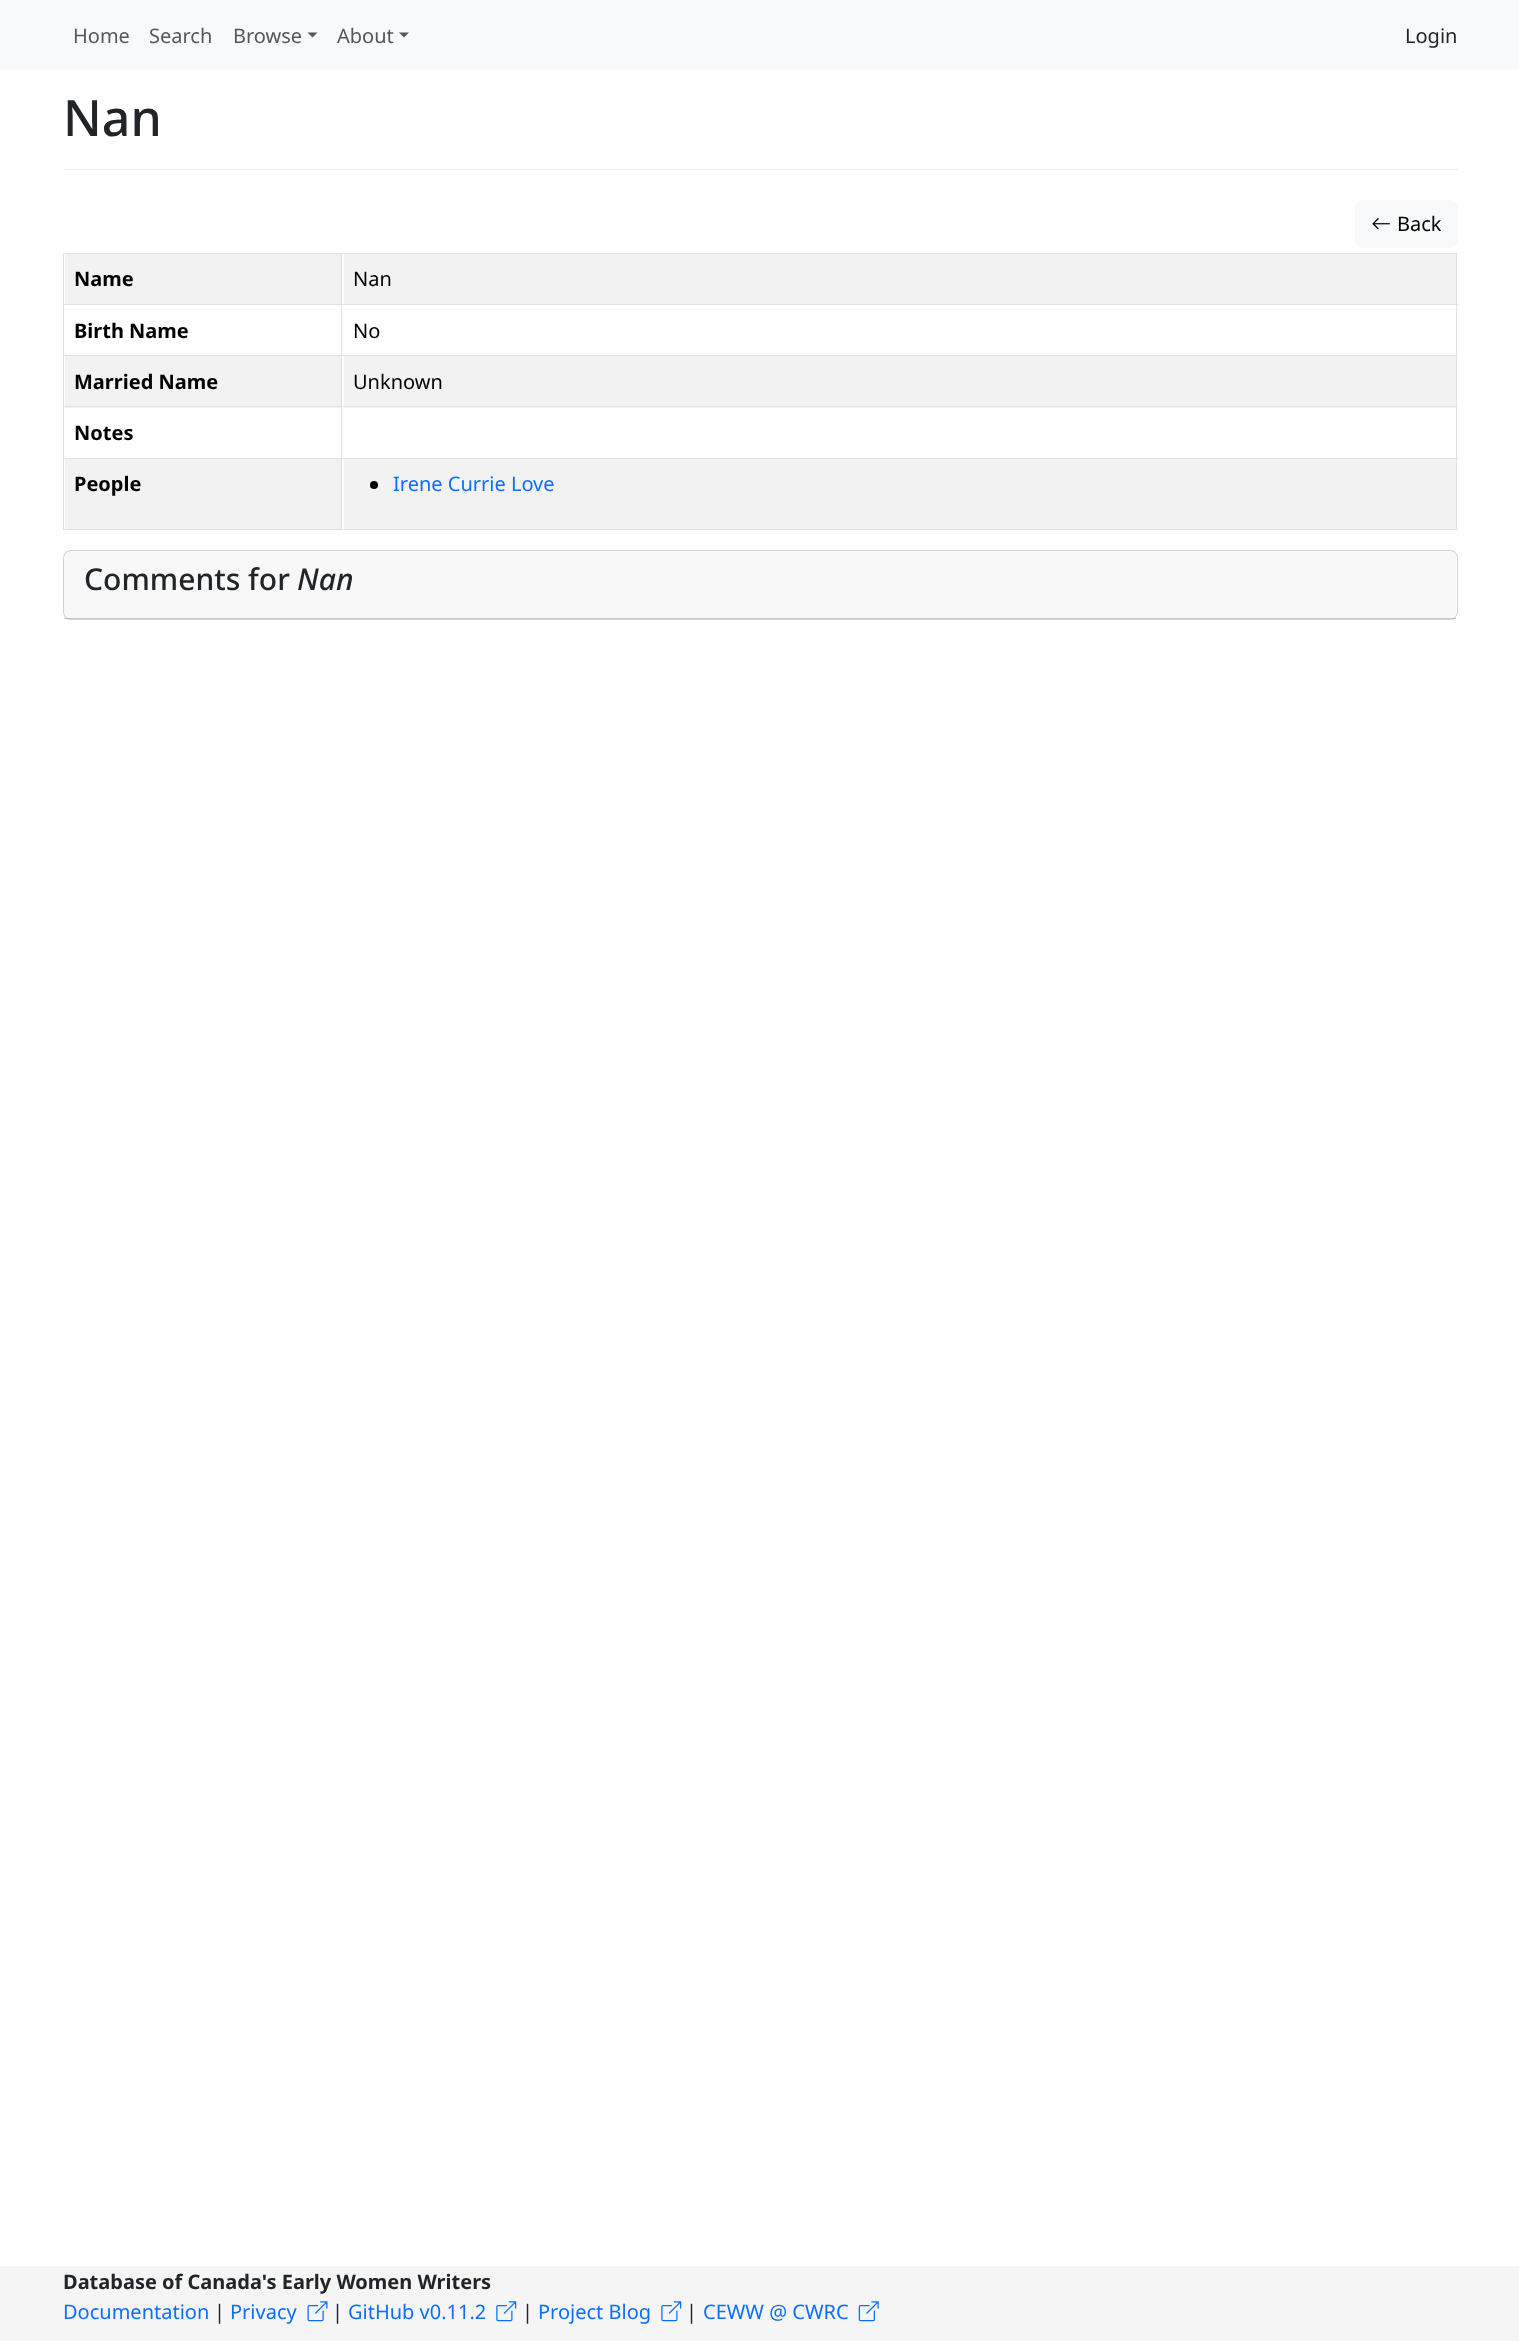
<svg xmlns="http://www.w3.org/2000/svg" xmlns:xlink="http://www.w3.org/1999/xlink" width="1519" height="2341" viewBox="0 0 1519 2341">
<style>
.cls-1{font:20px Noto Sans;fill:#575758}
.cls-2{font:20px Noto Sans;fill:#212529}
.cls-3{font:500 50px Noto Sans;fill:#212529}
.cls-4{font:20px Noto Sans;fill:#000000}
.cls-5{font:bold 20px Noto Sans;fill:#000000}
.cls-6{font:20px Noto Sans;fill:#0d6efd}
.cls-7{font:500 30px Noto Sans;fill:#212529}
.cls-8{font:italic 500 30px Noto Sans;fill:#212529}
.cls-9{font:bold 20px Noto Sans;fill:#212529}
</style>
<rect width="100%" height="100%" fill="#ffffff"/>
<rect fill="#f8f9fa" x="0" y="0" width="1519" height="70"/>
<path fill="#575758" d="M307.5 32.5H317.5L312.5 37.5Z"/>
<path fill="#575758" d="M399 32.5H409L404 37.5Z"/>
<rect fill="#eeeeee" x="63" y="169" width="1395" height="1"/>
<rect fill="#f8f9fa" x="1355" y="200" width="103" height="48" rx="8"/>
<image xlink:href="image0.png" x="1372" y="218" width="18" height="12"/>
<rect fill="#dee2e6" x="63" y="253" width="1395" height="1"/>
<rect fill="#f2f2f2" x="65" y="254" width="276" height="50"/>
<rect fill="#f2f2f2" x="344" y="254" width="1112" height="50"/>
<rect fill="#dee2e6" x="63" y="304" width="1395" height="1"/>
<rect fill="#dee2e6" x="63" y="355" width="1395" height="1"/>
<rect fill="#f2f2f2" x="65" y="356" width="276" height="52"/>
<rect fill="#f2f2f2" x="344" y="356" width="1112" height="52"/>
<rect fill="#dee2e6" x="63" y="406" width="1395" height="1"/>
<rect fill="#dee2e6" x="63" y="458" width="1395" height="1"/>
<rect fill="#dee2e6" x="63" y="529" width="1395" height="1"/>
<rect fill="#f2f2f2" x="65" y="459" width="276" height="70"/>
<rect fill="#dee2e6" x="63" y="253" width="1" height="277"/>
<rect fill="#f2f2f2" x="344" y="459" width="1112" height="70"/>
<rect fill="#dee2e6" x="1456" y="253" width="1" height="277"/>
<rect fill="#dee2e6" x="341" y="253" width="1" height="277"/>
<circle fill="#000000" cx="374" cy="485" r="4"/>
<rect fill="none" stroke="#d2d2d2" x="63.5" y="550.5" width="1394" height="69" rx="7.5"/>
<rect fill="#212529" fill-opacity="0.03" x="64" y="551" width="1392" height="68"/>
<rect fill="#000000" fill-opacity="0.18" x="64" y="618" width="1392" height="1"/>
<rect fill="#f5f5f5" x="0" y="2266" width="1519" height="75"/>
<image xlink:href="image1.png" x="307" y="2301" width="21" height="21"/>
<image xlink:href="image2.png" x="496" y="2301" width="21" height="21"/>
<image xlink:href="image2.png" x="661" y="2301" width="21" height="21"/>
<image xlink:href="image3.png" x="858" y="2301" width="21" height="21"/>
<text class="cls-1" x="73" y="43">Home</text>
<text class="cls-1" x="149" y="43">Search</text>
<text class="cls-1" x="233" y="43">Browse</text>
<text class="cls-1" x="337" y="43">About</text>
<text class="cls-2" x="1405" y="43">Login</text>
<text class="cls-3" x="63" y="136">Nan</text>
<text class="cls-4" x="1397" y="231">Back</text>
<text class="cls-5" x="74" y="286">Name</text>
<text class="cls-4" x="353" y="286">Nan</text>
<text class="cls-5" x="74" y="338">Birth Name</text>
<text class="cls-4" x="353" y="338">No</text>
<text class="cls-5" x="74" y="389">Married Name</text>
<text class="cls-4" x="353" y="389">Unknown</text>
<text class="cls-5" x="74" y="440">Notes</text>
<text class="cls-5" x="74" y="491">People</text>
<text class="cls-6" x="393" y="491">Irene Currie Love</text>
<text class="cls-7" x="84" y="590">Comments for</text>
<text class="cls-8" x="297" y="590">Nan</text>
<text class="cls-9" x="63" y="2289">Database of Canada's Early Women Writers</text>
<text class="cls-6" x="63" y="2319">Documentation</text>
<text class="cls-2" x="214" y="2319">|</text>
<text class="cls-6" x="230" y="2319">Privacy</text>
<text class="cls-2" x="332" y="2319">|</text>
<text class="cls-6" x="348" y="2319">GitHub v0.11.2</text>
<text class="cls-2" x="522" y="2319">|</text>
<text class="cls-6" x="538" y="2319">Project Blog</text>
<text class="cls-2" x="686" y="2319">|</text>
<text class="cls-6" x="703" y="2319">CEWW @ CWRC</text>
</svg>
